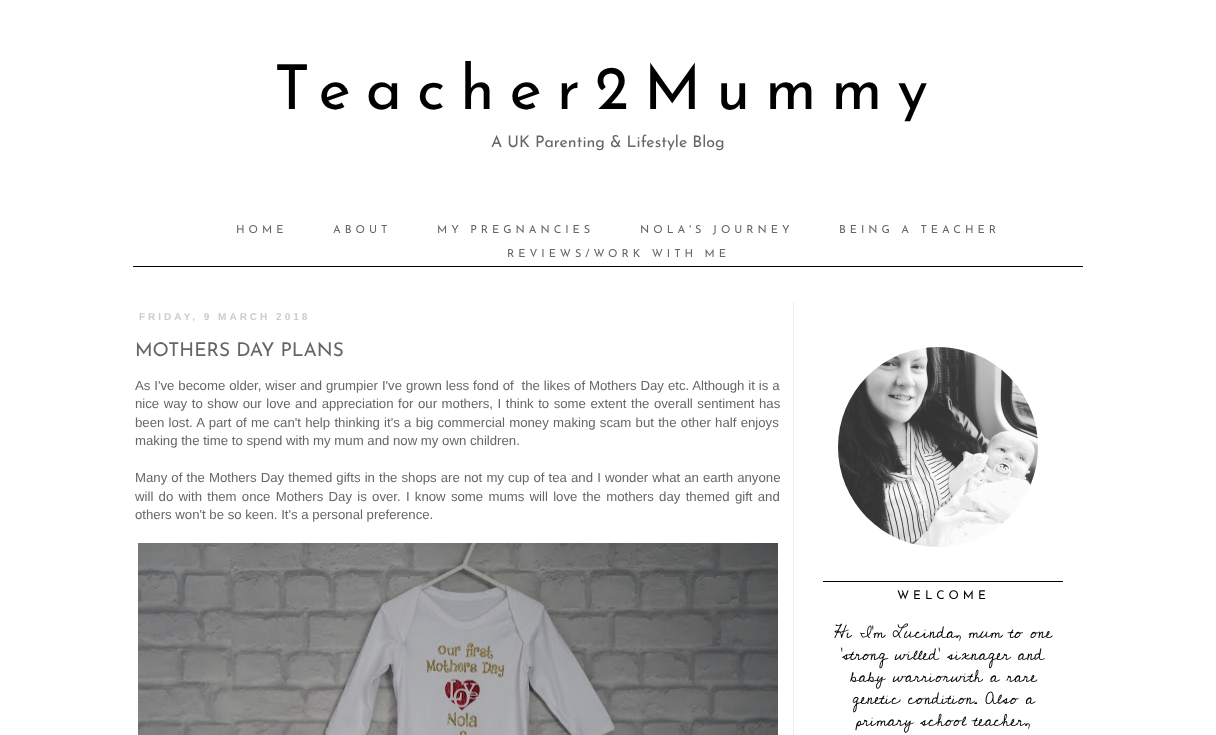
<svg xmlns="http://www.w3.org/2000/svg" xmlns:xlink="http://www.w3.org/1999/xlink" width="1216" height="735" viewBox="0 0 1216 735">
<style>
.cls-1{font:100 62px Josefin Sans;letter-spacing:15px;fill:#000000}
.cls-2{font:100 16px Josefin Sans;fill:#666666}
.cls-3{font:100 11px Josefin Sans;letter-spacing:4px;fill:#666666}
.cls-4{font:bold 10px Liberation Sans;letter-spacing:3px;fill:#cccccc}
.cls-5{font:100 19px Josefin Sans;fill:#666666}
.cls-6{font:13.2px Liberation Sans;fill:#666666}
.cls-7{font:100 12px Josefin Sans;letter-spacing:4px;fill:#000000}
.cls-8{font:17px Cedarville Cursive;fill:#000000}
</style>
<rect width="100%" height="100%" fill="#ffffff"/>
<rect fill="#000000" x="133" y="266" width="950" height="1"/>
<rect fill="#eeeeee" x="793" y="302" width="1" height="433"/>
<image xlink:href="image0.png" x="138" y="543" width="640" height="192"/>
<image xlink:href="image1.png" x="838" y="347" width="200" height="200"/>
<rect fill="#000000" x="823" y="581" width="240" height="1"/>
<text class="cls-1" x="274" y="109">Teacher2Mummy</text>
<text class="cls-2" x="491" y="147">A UK Parenting &amp; Lifestyle Blog</text>
<text class="cls-3" x="236" y="233">HOME</text>
<text class="cls-3" x="333" y="233">ABOUT</text>
<text class="cls-3" x="437" y="233">MY PREGNANCIES</text>
<text class="cls-3" x="640" y="233">NOLA'S JOURNEY</text>
<text class="cls-3" x="839" y="233">BEING A TEACHER</text>
<text class="cls-3" x="507" y="257">REVIEWS/WORK WITH ME</text>
<text class="cls-4" x="139" y="320">FRIDAY, 9 MARCH 2018</text>
<text class="cls-5" x="135" y="356">MOTHERS DAY PLANS</text>
<text class="cls-6" xml:space="preserve"><tspan x="135" y="390" word-spacing="0.25">As I've become older, wiser and grumpier I've grown less fond of  the likes of Mothers Day etc. Although it is a</tspan><tspan x="135" y="408" word-spacing="0.9">nice way to show our love and appreciation for our mothers, I think to some extent the overall sentiment has</tspan><tspan x="135" y="427" word-spacing="0.6">been lost. A part of me can't help thinking it's a big commercial money making scam but the other half enjoys</tspan><tspan x="135" y="445">making the time to spend with my mum and now my own children.</tspan></text>
<text class="cls-6"><tspan x="135" y="482" word-spacing="0.45">Many of the Mothers Day themed gifts in the shops are not my cup of tea and I wonder what an earth anyone</tspan><tspan x="135" y="501" word-spacing="1.6">will do with them once Mothers Day is over. I know some mums will love the mothers day themed gift and</tspan><tspan x="135" y="519">others won't be so keen. It's a personal preference.</tspan></text>
<text class="cls-7" x="897" y="599">WELCOME</text>
<text class="cls-8" x="834" y="638">Hi I'm Lucinda, mum to one</text>
<text class="cls-8" x="841" y="660">'strong willed' sixnager and</text>
<text class="cls-8" x="850" y="682">baby warriorwith a rare</text>
<text class="cls-8" x="852" y="704">genetic condition. Also a</text>
<text class="cls-8" x="856" y="726">primary school teacher,</text>
</svg>
